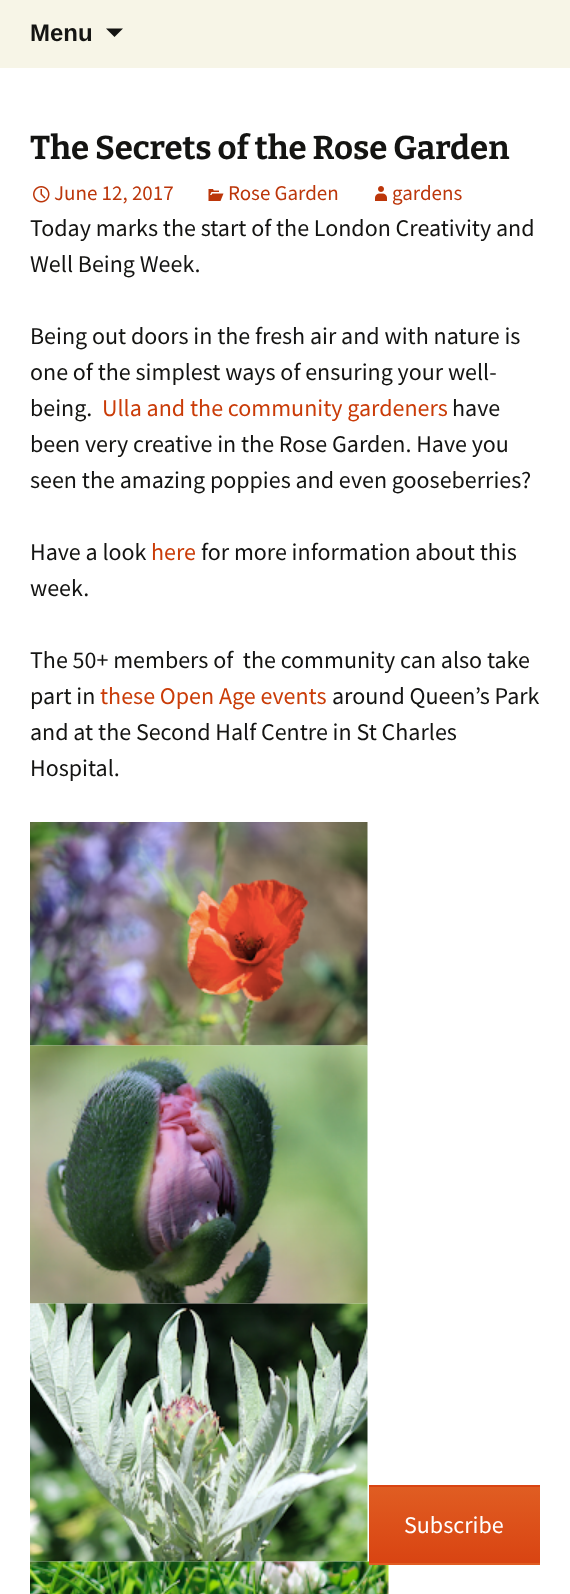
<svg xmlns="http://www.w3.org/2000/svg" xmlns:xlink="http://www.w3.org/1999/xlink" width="570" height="1594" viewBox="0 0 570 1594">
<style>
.cls-1{font:bold 24px Liberation Sans;fill:#141412}
.cls-2{font:100 33px Bitter;fill:#141412}
.cls-3{font:21px Source Sans Pro;fill:#bc360a}
.cls-4{font:24px Source Sans Pro;fill:#141412}
.cls-5{font:24px Source Sans Pro;fill:#ca3c08}
.cls-6{font:24px Source Sans Pro;fill:#ffffff}
</style>
<defs>
<linearGradient id="g1" gradientUnits="userSpaceOnUse" x1="455" y1="1410" x2="455" y2="1487"><stop offset="0" stop-color="#e05d22"/><stop offset="1" stop-color="#d94412"/></linearGradient>
<linearGradient id="g2" gradientUnits="userSpaceOnUse" x1="455" y1="1487" x2="455" y2="1563"><stop offset="0" stop-color="#e05d22"/><stop offset="1" stop-color="#d94412"/></linearGradient>
<linearGradient id="g3" gradientUnits="userSpaceOnUse" x1="455" y1="1563" x2="455" y2="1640"><stop offset="0" stop-color="#e05d22"/><stop offset="1" stop-color="#d94412"/></linearGradient>
</defs>
<rect width="100%" height="100%" fill="#ffffff"/>
<rect fill="#f7f5e7" x="0" y="0" width="570" height="68"/>
<path fill="#141412" d="M106 28.5H123L114.5 37Z"/>
<image xlink:href="image0.png" x="33" y="186" width="17" height="17"/>
<image xlink:href="image1.png" x="208" y="189" width="16" height="12"/>
<image xlink:href="image2.png" x="375" y="186" width="12" height="15"/>
<image xlink:href="image3.png" x="30" y="822" width="338" height="224"/>
<image xlink:href="image4.png" x="30" y="1045" width="338" height="259"/>
<image xlink:href="image5.png" x="30" y="1303" width="338" height="259"/>
<image xlink:href="image6.png" x="30" y="1561" width="359" height="33"/>
<rect fill="url(#g1)" x="369" y="1485" width="171" height="2"/>
<rect fill="url(#g2)" x="369" y="1487" width="171" height="76"/>
<rect fill="url(#g3)" x="369" y="1563" width="171" height="2"/>
<text class="cls-1" x="30" y="41">Menu</text>
<text class="cls-2" x="30" y="159">The Secrets of the Rose Garden</text>
<text class="cls-3" x="54" y="200">June 12, 2017</text>
<text class="cls-3" x="228" y="200">Rose Garden</text>
<text class="cls-3" x="392" y="200">gardens</text>
<text class="cls-4"><tspan x="30" y="236">Today marks the start of the London Creativity and</tspan><tspan x="30" y="272">Well Being Week.</tspan></text>
<text class="cls-4"><tspan x="30" y="344">Being out doors in the fresh air and with nature is</tspan><tspan x="30" y="380">one of the simplest ways of ensuring your well-</tspan><tspan x="30" y="416">being.</tspan></text>
<text class="cls-5" x="102" y="416">Ulla and the community gardeners</text>
<text class="cls-4" x="452" y="416">have</text>
<text class="cls-4"><tspan x="30" y="452">been very creative in the Rose Garden. Have you</tspan><tspan x="30" y="488">seen the amazing poppies and even gooseberries?</tspan></text>
<text class="cls-4" x="30" y="560">Have a look</text>
<text class="cls-5" x="151" y="560">here</text>
<text class="cls-4" x="201" y="560">for more information about this</text>
<text class="cls-4" x="30" y="596">week.</text>
<text class="cls-4" xml:space="preserve"><tspan x="30" y="668">The 50+ members of  the community can also take</tspan><tspan x="30" y="704">part in</tspan></text>
<text class="cls-5" x="100" y="704">these Open Age events</text>
<text class="cls-4" x="332" y="704">around Queen’s Park</text>
<text class="cls-4"><tspan x="30" y="740">and at the Second Half Centre in St Charles</tspan><tspan x="30" y="776">Hospital.</tspan></text>
<text class="cls-6" x="404" y="1533">Subscribe</text>
</svg>
